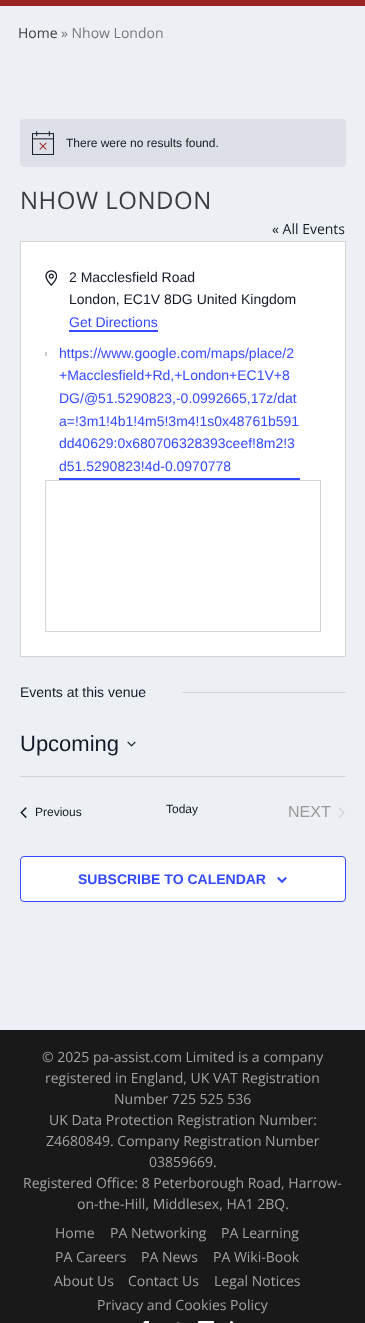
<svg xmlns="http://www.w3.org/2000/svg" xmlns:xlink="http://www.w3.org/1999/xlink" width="365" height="1323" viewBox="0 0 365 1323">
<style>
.cls-1{font:14px Open Sans;fill:#3b3c3d}
.cls-2{font:14px Open Sans;fill:#76787b}
.cls-3{font:12px Liberation Sans;fill:#141827}
.cls-4{font:24px Open Sans;letter-spacing:0.5px;fill:#3b3c3d}
.cls-5{font:14px Open Sans;fill:#141827}
.cls-6{font:14px Liberation Sans;fill:#141827}
.cls-7{font:14px Liberation Sans;fill:#334aff}
.cls-8{font:22px Liberation Sans;fill:#141827}
.cls-9{font:16px Liberation Sans;fill:#999999}
.cls-10{font:bold 14px Liberation Sans;fill:#334aff}
.cls-11{font:14px Open Sans;fill:#a3a3a3}
</style>
<rect width="100%" height="100%" fill="#ecf0f5"/>
<rect fill="#9b2222" x="0" y="0" width="365" height="6"/>
<rect fill="#dde1e7" x="20" y="119" width="326" height="48" rx="4"/>
<image xlink:href="image0.png" x="32" y="131" width="22" height="24"/>
<rect fill="#ffffff" stroke="#d5d5d5" x="20.5" y="241.5" width="325" height="415"/>
<image xlink:href="image1.png" x="45" y="270" width="12" height="16"/>
<rect fill="#334aff" x="69" y="330" width="89" height="2"/>
<image xlink:href="image2.png" x="45" y="352" width="2" height="4"/>
<rect fill="#334aff" x="59" y="478" width="241" height="2"/>
<rect fill="none" stroke="#d5d5d5" x="45.5" y="480.5" width="275" height="151"/>
<rect fill="#d5d5d5" x="182" y="692" width="164" height="1"/>
<image xlink:href="image3.png" x="127" y="741" width="9" height="6"/>
<rect fill="#d5d5d5" x="20" y="776" width="326" height="1"/>
<image xlink:href="image4.png" x="20" y="807" width="7" height="11"/>
<image xlink:href="image5.png" x="338" y="807" width="7" height="11"/>
<rect fill="#ffffff" stroke="#334aff" x="20.5" y="856.5" width="325" height="45" rx="3.5"/>
<image xlink:href="image6.png" x="277" y="877" width="10" height="6"/>
<rect fill="#191919" x="0" y="1030" width="365" height="293"/>
<image xlink:href="image7.png" x="143" y="1321" width="6" height="2"/>
<image xlink:href="image8.png" x="176" y="1322" width="7" height="1"/>
<image xlink:href="image9.png" x="198" y="1321" width="16" height="2"/>
<image xlink:href="image10.png" x="230" y="1321" width="3" height="2"/>
<text class="cls-1" x="18" y="38">Home</text>
<text class="cls-2" x="61" y="38">» Nhow London</text>
<text class="cls-3" x="66" y="147">There were no results found.</text>
<text class="cls-4" x="20" y="209">NHOW LONDON</text>
<text class="cls-5" x="272" y="234">« All Events</text>
<text class="cls-6"><tspan x="69" y="282">2 Macclesfield Road</tspan><tspan x="69" y="304">London, EC1V 8DG United Kingdom</tspan></text>
<text class="cls-7" x="69" y="327">Get Directions</text>
<text class="cls-7"><tspan x="59" y="358">https://www.google.com/maps/place/2</tspan><tspan x="59" y="380">+Macclesfield+Rd,+London+EC1V+8</tspan><tspan x="59" y="403">DG/@51.5290823,-0.0992665,17z/dat</tspan><tspan x="59" y="426">a=!3m1!4b1!4m5!3m4!1s0x48761b591</tspan><tspan x="59" y="448">dd40629:0x680706328393ceef!8m2!3</tspan><tspan x="59" y="471">d51.5290823!4d-0.0970778</tspan></text>
<text class="cls-6" x="20" y="697">Events at this venue</text>
<text class="cls-8" x="20" y="751">Upcoming</text>
<text class="cls-3" x="35" y="816">Previous</text>
<text class="cls-3" x="166" y="813">Today</text>
<text class="cls-9" x="288" y="817">NEXT</text>
<text class="cls-10" x="78" y="884">SUBSCRIBE TO CALENDAR</text>
<text class="cls-11" x="42" y="1062">© 2025 pa-assist.com Limited is a company</text>
<text class="cls-11" x="45" y="1083">registered in England, UK VAT Registration</text>
<text class="cls-11" x="114" y="1104">Number 725 525 536</text>
<text class="cls-11" x="49" y="1125">UK Data Protection Registration Number:</text>
<text class="cls-11" x="46" y="1146">Z4680849. Company Registration Number</text>
<text class="cls-11" x="149" y="1167">03859669.</text>
<text class="cls-11" x="23" y="1188">Registered Office: 8 Peterborough Road, Harrow-</text>
<text class="cls-11" x="77" y="1209">on-the-Hill, Middlesex, HA1 2BQ.</text>
<text class="cls-11" x="55" y="1238">Home</text>
<text class="cls-11" x="110" y="1238">PA Networking</text>
<text class="cls-11" x="221" y="1238">PA Learning</text>
<text class="cls-11" x="55" y="1262">PA Careers</text>
<text class="cls-11" x="141" y="1262">PA News</text>
<text class="cls-11" x="213" y="1262">PA Wiki-Book</text>
<text class="cls-11" x="54" y="1286">About Us</text>
<text class="cls-11" x="128" y="1286">Contact Us</text>
<text class="cls-11" x="214" y="1286">Legal Notices</text>
<text class="cls-11" x="97" y="1310">Privacy and Cookies Policy</text>
</svg>
